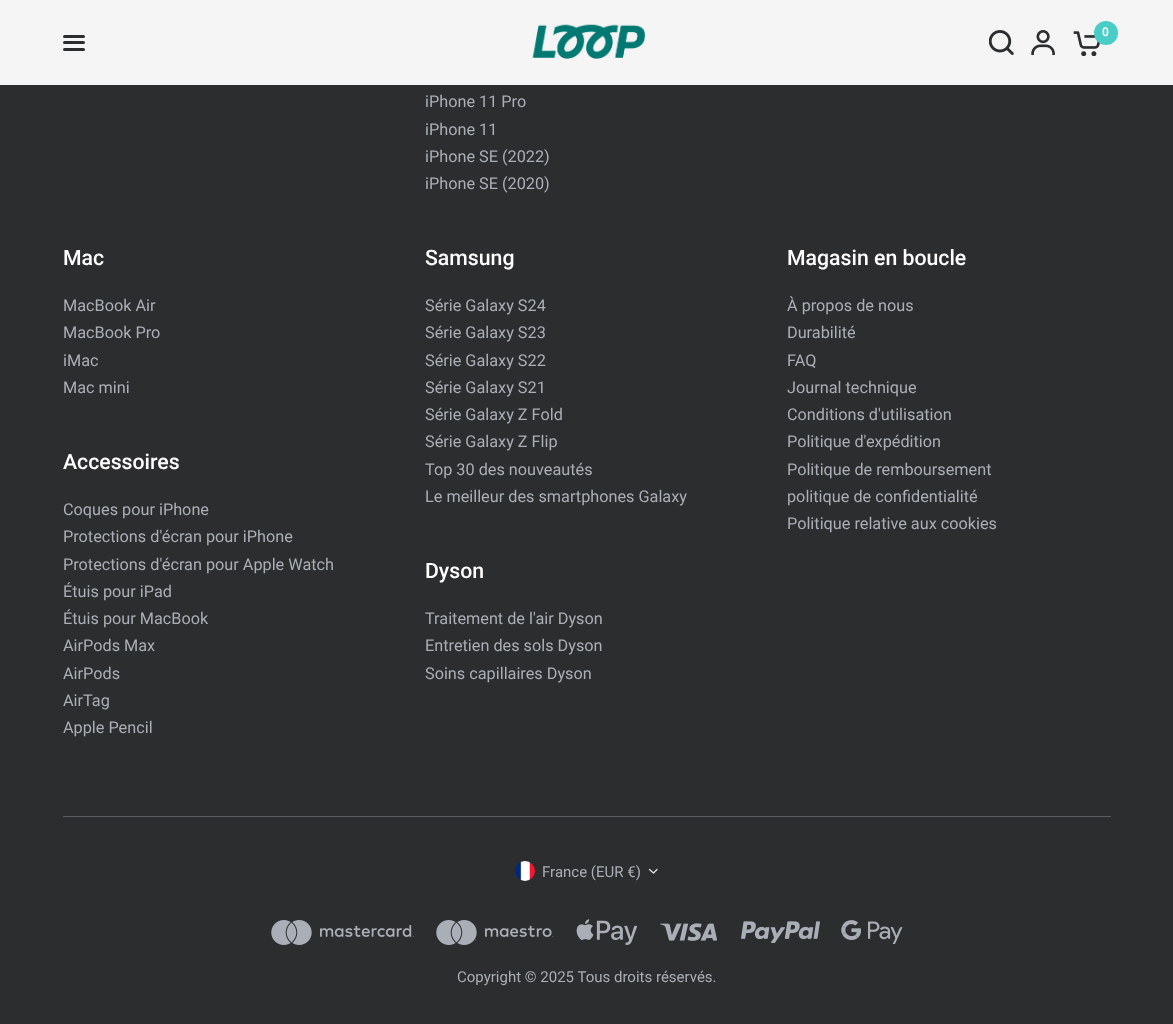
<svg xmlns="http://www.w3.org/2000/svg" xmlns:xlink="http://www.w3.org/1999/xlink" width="1173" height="1024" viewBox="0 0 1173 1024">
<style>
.cls-1{font:600 12px Roboto;fill:#ffffff}
.cls-2{font:16.25px Roboto;fill:#aaaeb6}
.cls-3{font:500 21.25px Roboto;fill:#ffffff}
.cls-4{font:15px Roboto;fill:#aaaeb6}
</style>
<rect width="100%" height="100%" fill="#2c2d2e"/>
<rect fill="#f5f5f5" x="0" y="0" width="1173" height="85"/>
<image xlink:href="image0.png" x="532" y="24" width="113" height="35"/>
<image xlink:href="image1.png" x="989" y="30" width="25" height="25"/>
<image xlink:href="image2.png" x="1031" y="30" width="24" height="25"/>
<image xlink:href="image3.png" x="1073" y="31" width="27" height="25"/>
<circle fill="#4accc7" cx="1106" cy="33" r="12"/>
<rect fill="#2c2d2e" x="63" y="35" width="22" height="3" rx="1.5"/>
<rect fill="#2c2d2e" x="63" y="41" width="22" height="3" rx="1.5"/>
<rect fill="#2c2d2e" x="63" y="48" width="22" height="3" rx="1.5"/>
<rect fill="#595d61" x="63" y="816" width="1048" height="1"/>
<image xlink:href="image4.png" x="515" y="861" width="20" height="20"/>
<path fill="none" stroke="#dadce0" stroke-width="1.4" stroke-linecap="round" stroke-linejoin="round" d="M657 869.5L653.5 873L649.5 869.5"/>
<image xlink:href="image5.png" x="271" y="920" width="143" height="25"/>
<image xlink:href="image6.png" x="436" y="920" width="118" height="25"/>
<image xlink:href="image7.png" x="576" y="919" width="62" height="26"/>
<image xlink:href="image8.png" x="660" y="923" width="57" height="18"/>
<image xlink:href="image9.png" x="741" y="921" width="79" height="22"/>
<image xlink:href="image10.png" x="841" y="920" width="62" height="24"/>
<text class="cls-1" x="1102" y="36">0</text>
<text class="cls-2"><tspan x="425" y="107">iPhone 11 Pro</tspan><tspan x="425" y="135">iPhone 11</tspan><tspan x="425" y="162">iPhone SE (2022)</tspan><tspan x="425" y="189">iPhone SE (2020)</tspan></text>
<text class="cls-3" x="63" y="265">Mac</text>
<text class="cls-2"><tspan x="63" y="311">MacBook Air</tspan><tspan x="63" y="338">MacBook Pro</tspan><tspan x="63" y="366">iMac</tspan><tspan x="63" y="393">Mac mini</tspan></text>
<text class="cls-3" x="63" y="469">Accessoires</text>
<text class="cls-2"><tspan x="63" y="515">Coques pour iPhone</tspan><tspan x="63" y="542">Protections d'écran pour iPhone</tspan><tspan x="63" y="570">Protections d'écran pour Apple Watch</tspan><tspan x="63" y="597">Étuis pour iPad</tspan><tspan x="63" y="624">Étuis pour MacBook</tspan><tspan x="63" y="651">AirPods Max</tspan><tspan x="63" y="679">AirPods</tspan><tspan x="63" y="706">AirTag</tspan><tspan x="63" y="733">Apple Pencil</tspan></text>
<text class="cls-3" x="425" y="265">Samsung</text>
<text class="cls-2"><tspan x="425" y="311">Série Galaxy S24</tspan><tspan x="425" y="338">Série Galaxy S23</tspan><tspan x="425" y="366">Série Galaxy S22</tspan><tspan x="425" y="393">Série Galaxy S21</tspan><tspan x="425" y="420">Série Galaxy Z Fold</tspan><tspan x="425" y="447">Série Galaxy Z Flip</tspan><tspan x="425" y="475">Top 30 des nouveautés</tspan><tspan x="425" y="502">Le meilleur des smartphones Galaxy</tspan></text>
<text class="cls-3" x="425" y="578">Dyson</text>
<text class="cls-2"><tspan x="425" y="624">Traitement de l'air Dyson</tspan><tspan x="425" y="651">Entretien des sols Dyson</tspan><tspan x="425" y="679">Soins capillaires Dyson</tspan></text>
<text class="cls-3" x="787" y="265">Magasin en boucle</text>
<text class="cls-2"><tspan x="787" y="311">À propos de nous</tspan><tspan x="787" y="338">Durabilité</tspan><tspan x="787" y="366">FAQ</tspan><tspan x="787" y="393">Journal technique</tspan><tspan x="787" y="420">Conditions d'utilisation</tspan><tspan x="787" y="447">Politique d'expédition</tspan><tspan x="787" y="475">Politique de remboursement</tspan><tspan x="787" y="502">politique de confidentialité</tspan><tspan x="787" y="529">Politique relative aux cookies</tspan></text>
<text class="cls-4" x="542" y="877">France (EUR €)</text>
<text class="cls-4" x="457" y="982">Copyright © 2025 Tous droits réservés.</text>
</svg>
